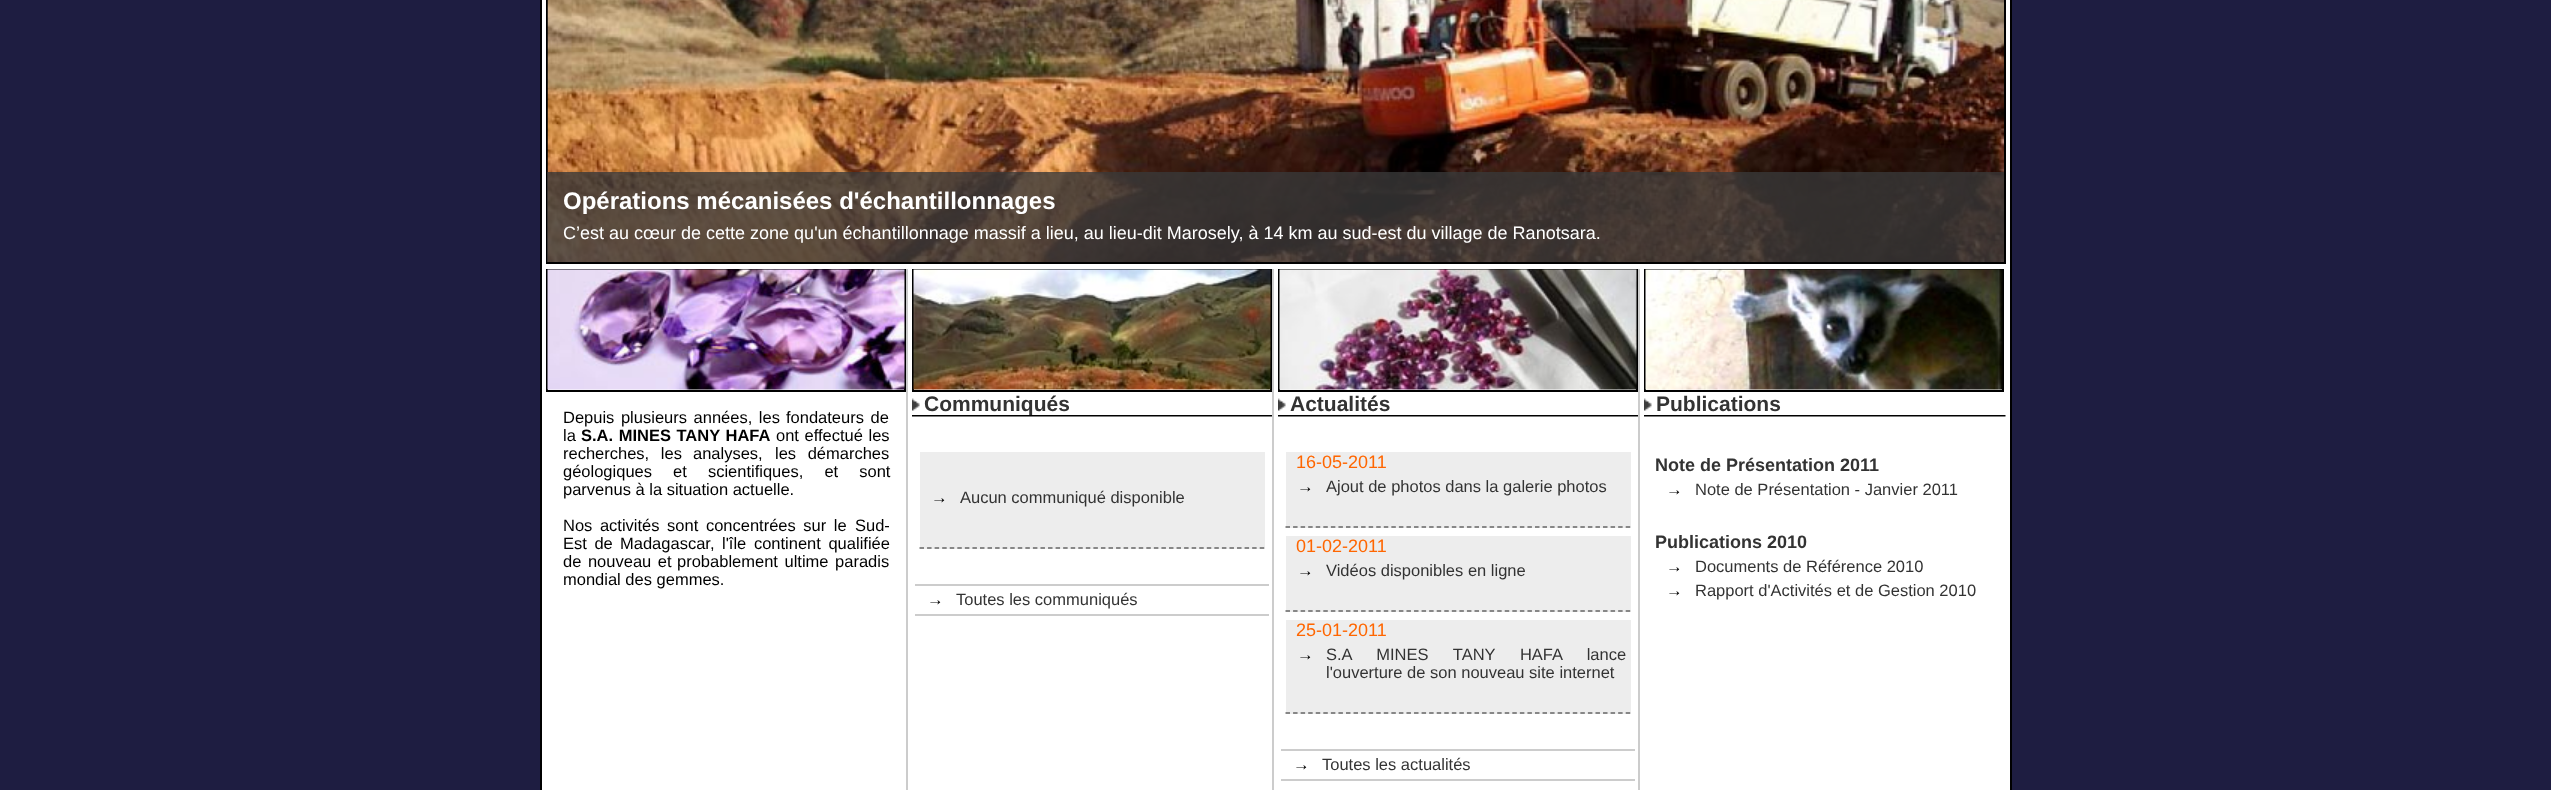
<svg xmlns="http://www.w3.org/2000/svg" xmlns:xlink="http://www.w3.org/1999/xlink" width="2551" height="790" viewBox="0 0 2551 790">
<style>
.cls-1{font:bold 24px Liberation Sans;fill:#ffffff}
.cls-2{font:18px Liberation Sans;fill:#ffffff}
.cls-3{font:16.5px Liberation Sans;fill:#000000}
.cls-4{font:bold 16.5px Liberation Sans;fill:#000000}
.cls-5{font:bold 21px Liberation Sans;fill:#333333}
.cls-6{font:16.5px Liberation Sans;fill:#333333}
.cls-7{font:18px Liberation Sans;fill:#ff6600}
.cls-8{font:bold 18px Liberation Sans;fill:#333333}
</style>
<rect width="100%" height="100%" fill="#1e1d41"/>
<rect fill="none" stroke="#000000" stroke-width="2" x="541" y="-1" width="1470" height="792"/>
<rect fill="#ffffff" x="542" y="0" width="1468" height="790"/>
<rect fill="none" stroke="#000000" stroke-width="2" x="547" y="-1" width="1458" height="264"/>
<image xlink:href="image0.png" x="547" y="0" width="1457" height="262"/>
<rect fill="#383838" fill-opacity="0.8" x="547" y="172" width="1457" height="90"/>
<rect fill="#cccccc" x="906" y="269" width="2" height="521"/>
<rect fill="none" stroke="#000000" stroke-width="2" x="547" y="270" width="358" height="121"/>
<image xlink:href="image1.png" x="547" y="269" width="358" height="121"/>
<rect fill="#cccccc" x="1272" y="269" width="2" height="521"/>
<rect fill="none" stroke="#000000" stroke-width="2" x="913" y="270" width="358" height="121"/>
<image xlink:href="image2.png" x="913" y="269" width="358" height="121"/>
<image xlink:href="image3.png" x="912" y="398" width="8" height="13"/>
<rect fill="#ededed" x="920" y="452" width="345" height="97"/>
<path fill="none" stroke="#666666" stroke-width="1.5" stroke-dasharray="4.5 3.06" d="M919.5 548H1264.5"/>
<rect fill="#cccccc" x="915" y="584" width="354" height="2"/>
<rect fill="#cccccc" x="915" y="614" width="354" height="2"/>
<rect fill="#cccccc" x="1638" y="269" width="2" height="521"/>
<rect fill="none" stroke="#000000" stroke-width="2" x="1279" y="270" width="358" height="121"/>
<image xlink:href="image5.png" x="1279" y="269" width="358" height="121"/>
<image xlink:href="image3.png" x="1278" y="398" width="8" height="13"/>
<image xlink:href="image4.png" x="1278" y="415" width="360" height="2"/>
<rect fill="#ededed" x="1286" y="452" width="345" height="76"/>
<path fill="none" stroke="#666666" stroke-width="1.5" stroke-dasharray="4.5 3.06" d="M1285.5 527H1630.5"/>
<rect fill="#ededed" x="1286" y="536" width="345" height="76"/>
<path fill="none" stroke="#666666" stroke-width="1.5" stroke-dasharray="4.5 3.06" d="M1285.5 611H1630.5"/>
<rect fill="#ededed" x="1286" y="620" width="345" height="94"/>
<path fill="none" stroke="#666666" stroke-width="1.5" stroke-dasharray="4.5 3.06" d="M1285.5 713H1630.5"/>
<rect fill="#cccccc" x="1281" y="749" width="354" height="2"/>
<rect fill="#cccccc" x="1281" y="779" width="354" height="2"/>
<rect fill="none" stroke="#000000" stroke-width="2" x="1645" y="270" width="358" height="121"/>
<image xlink:href="image6.png" x="1645" y="269" width="358" height="121"/>
<image xlink:href="image3.png" x="1644" y="398" width="8" height="13"/>
<image xlink:href="image7.png" x="1644" y="415" width="362" height="2"/>
<text class="cls-1" x="563" y="209">Opérations mécanisées d'échantillonnages</text>
<text class="cls-2" x="563" y="239">C’est au cœur de cette zone qu'un échantillonnage massif a lieu, au lieu-dit Marosely, à 14 km au sud-est du village de Ranotsara.</text>
<text class="cls-3" x="563" y="423" word-spacing="2">Depuis plusieurs années, les</text>
<text class="cls-3" x="786" y="423" word-spacing="2">fondateurs de</text>
<text class="cls-3" x="563" y="441">la</text>
<text class="cls-4" x="581" y="441" word-spacing="1">S.A. MINES TANY HAFA</text>
<text class="cls-3" x="776" y="441" word-spacing="1">ont effectué les</text>
<text class="cls-3" x="563" y="459" word-spacing="7">recherches, les</text>
<text class="cls-3" x="693" y="459">analyses,</text>
<text class="cls-3" x="775" y="459" word-spacing="7">les démarches</text>
<text class="cls-3"><tspan x="563" y="477" word-spacing="16.5">géologiques et scientifiques, et sont</tspan><tspan x="563" y="495">parvenus à la situation actuelle.</tspan></text>
<text class="cls-3" x="563" y="531" word-spacing="3">Nos activités sont concentrées sur le</text>
<text class="cls-3" x="855" y="531">Sud-</text>
<text class="cls-3" x="563" y="549" word-spacing="3">Est de</text>
<text class="cls-3" x="620" y="549" word-spacing="3">Madagascar, l'île continent qualifiée</text>
<text class="cls-3" x="563" y="567" word-spacing="2">de nouveau et</text>
<text class="cls-3" x="677" y="567" word-spacing="2">probablement ultime paradis</text>
<text class="cls-3" x="563" y="585">mondial des gemmes.</text>
<text class="cls-5" x="924" y="411">Communiqués</text>
<image xlink:href="image4.png" x="912" y="415" width="360" height="2"/>
<text class="cls-3" x="931" y="503">→</text>
<text class="cls-6" x="960" y="503">Aucun communiqué disponible</text>
<text class="cls-3" x="927" y="605">→</text>
<text class="cls-6" x="956" y="605">Toutes les communiqués</text>
<text class="cls-5" x="1290" y="411">Actualités</text>
<text class="cls-7" x="1296" y="468">16-05-2011</text>
<text class="cls-3" x="1297" y="492">→</text>
<text class="cls-6" x="1326" y="492">Ajout de photos dans la galerie photos</text>
<text class="cls-7" x="1296" y="552">01-02-2011</text>
<text class="cls-3" x="1297" y="576">→</text>
<text class="cls-6" x="1326" y="576">Vidéos disponibles en ligne</text>
<text class="cls-7" x="1296" y="636">25-01-2011</text>
<text class="cls-3" x="1297" y="660">→</text>
<text class="cls-6"><tspan x="1326" y="660" word-spacing="20">S.A MINES TANY HAFA lance</tspan><tspan x="1326" y="678">l'ouverture de son nouveau site internet</tspan></text>
<text class="cls-3" x="1293" y="770">→</text>
<text class="cls-6" x="1322" y="770">Toutes les actualités</text>
<text class="cls-5" x="1656" y="411">Publications</text>
<text class="cls-8" x="1655" y="471">Note de Présentation 2011</text>
<text class="cls-3" x="1666" y="495">→</text>
<text class="cls-6" x="1695" y="495">Note de Présentation - Janvier 2011</text>
<text class="cls-8" x="1655" y="548">Publications 2010</text>
<text class="cls-3" x="1666" y="572">→</text>
<text class="cls-6" x="1695" y="572">Documents de Référence 2010</text>
<text class="cls-3" x="1666" y="596">→</text>
<text class="cls-6" x="1695" y="596">Rapport d'Activités et de Gestion 2010</text>
</svg>
